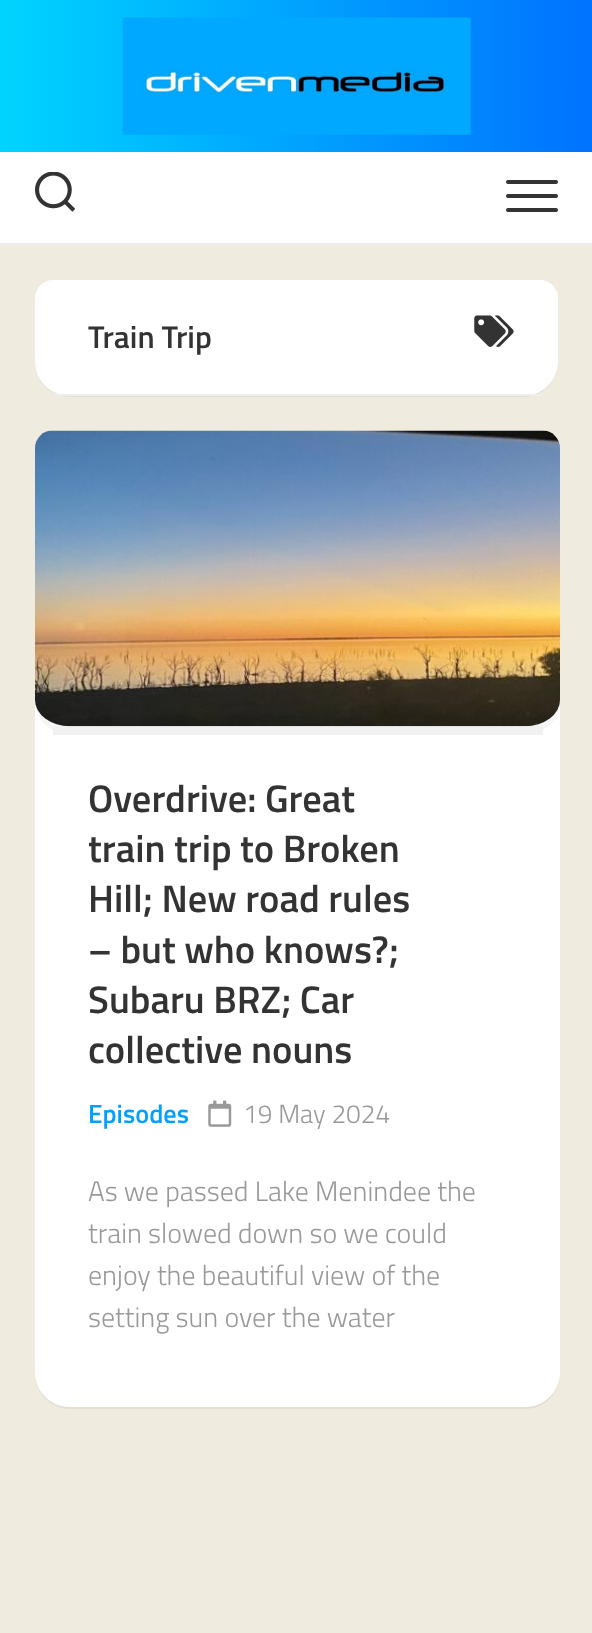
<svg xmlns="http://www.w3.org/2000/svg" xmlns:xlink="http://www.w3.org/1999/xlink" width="592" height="1633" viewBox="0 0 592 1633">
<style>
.cls-1{font:600 31.5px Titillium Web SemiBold;fill:#333333}
.cls-2{font:600 38.5px Titillium Web SemiBold;fill:#333333}
.cls-3{font:600 26.25px Titillium Web SemiBold;fill:#00a0ff}
.cls-4{font:300 26.25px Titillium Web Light;fill:#999999}
.cls-5{font:300 28px Titillium Web Light;fill:#999999}
</style>
<defs>
<linearGradient id="g1" gradientUnits="userSpaceOnUse" x1="0" y1="123" x2="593" y2="122"><stop offset="0" stop-color="#00d4ff"/><stop offset="1" stop-color="#0072ff"/></linearGradient>
</defs>
<rect width="100%" height="100%" fill="#efebde"/>
<rect fill="url(#g1)" x="0" y="0" width="592" height="152"/>
<image xlink:href="image0.png" x="122" y="17" width="349" height="118"/>
<rect fill="#ffffff" x="0" y="152" width="592" height="91"/>
<image xlink:href="image1.png" x="35" y="172" width="40" height="40"/>
<rect fill="#eeeeee" x="0" y="243" width="592" height="2"/>
<rect fill="#333333" x="506" y="180" width="52" height="4" rx="2"/>
<rect fill="#333333" x="506" y="194" width="52" height="4" rx="2"/>
<rect fill="#333333" x="506" y="208" width="52" height="4" rx="2"/>
<path fill="#e3dfd3" d="M35 360V362C35 381 51 397 70 397H523C541 397 555 384 558 367C555 383 540 396 523 396H70C51 396 35 380 35 360Z"/>
<path fill="#ffffff" d="M53 280H540C550 280 558 288 558 298V361C558 380.5 542.5 396 523 396H70C50.5 396 35 380.5 35 361V298C35 288 43 280 53 280Z"/>
<rect fill="#eeeeee" x="53" y="394" width="488" height="2"/>
<image xlink:href="image2.png" x="474" y="315" width="40" height="32"/>
<path fill="#e3dfd3" d="M35 1372V1374C35 1393 51 1409 70 1409H525C544 1409 560 1393 560 1374V1372C560 1391 544 1407 525 1407H70C51 1407 35 1391 35 1372Z"/>
<path fill="#ffffff" d="M53 431H542C552 431 560 439 560 449V1372C560 1391.5 544.5 1407 525 1407H70C50.5 1407 35 1391.5 35 1372V449C35 439 43 431 53 431Z"/>
<path fill="#f5f5f5" d="M53 431H542C552 431 560 439 560 449V700C560 719.5 544.5 735 525 735H70C50.5 735 35 719.5 35 700V449C35 439 43 431 53 431Z"/>
<rect fill="#f1f1f1" x="53" y="726" width="490" height="9"/>
<image xlink:href="image3.png" x="35" y="430" width="525" height="297"/>
<image xlink:href="image4.png" x="208" y="1100" width="24" height="27"/>
<text class="cls-1" x="88" y="348">Train Trip</text>
<text class="cls-2"><tspan x="88" y="812">Overdrive: Great</tspan><tspan x="88" y="862">train trip to Broken</tspan><tspan x="88" y="912">Hill; New road rules</tspan><tspan x="88" y="963">– but who knows?;</tspan><tspan x="88" y="1013">Subaru BRZ; Car</tspan><tspan x="88" y="1063">collective nouns</tspan></text>
<text class="cls-3" x="88" y="1123">Episodes</text>
<text class="cls-4" x="243" y="1123">19 May 2024</text>
<text class="cls-5"><tspan x="88" y="1201">As we passed Lake Menindee the</tspan><tspan x="88" y="1243">train slowed down so we could</tspan><tspan x="88" y="1285">enjoy the beautiful view of the</tspan><tspan x="88" y="1327">setting sun over the water</tspan></text>
</svg>
